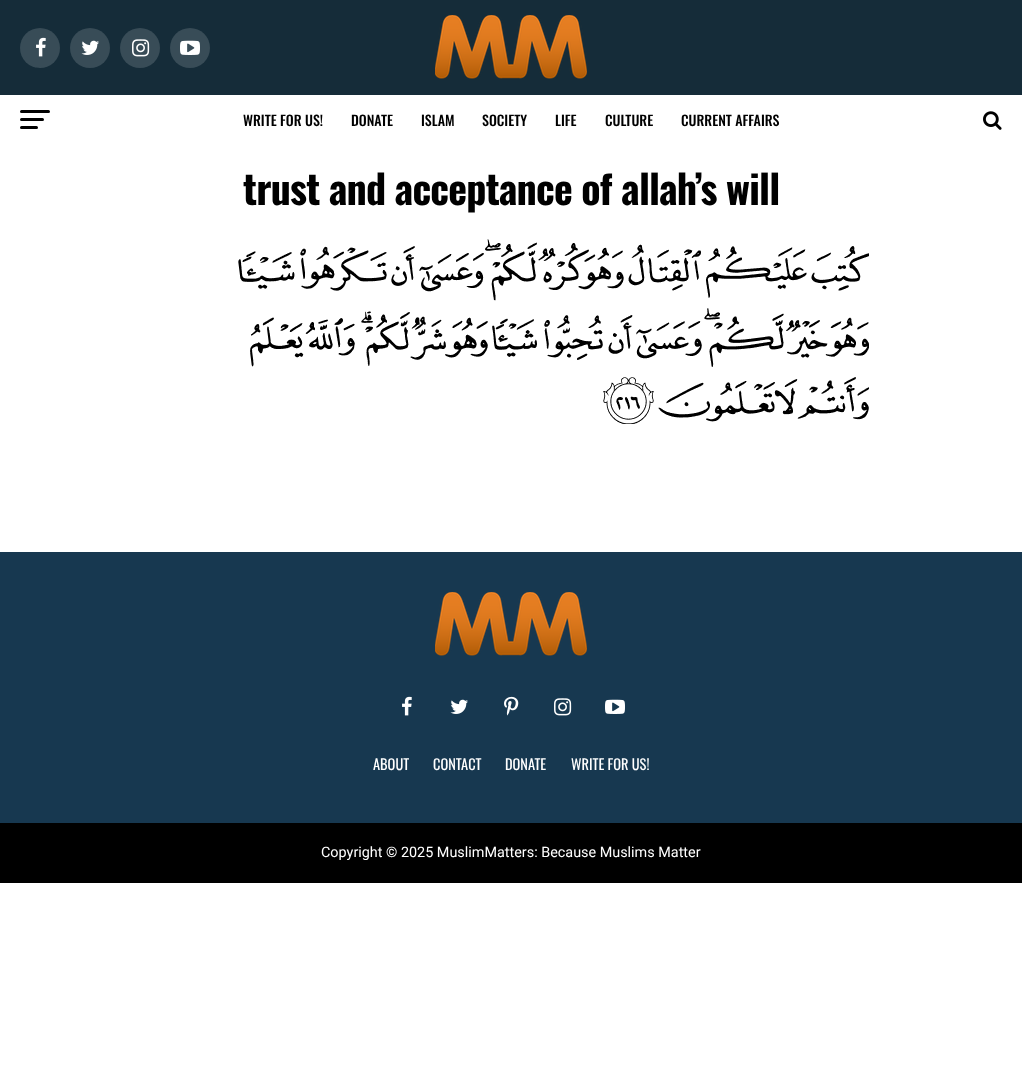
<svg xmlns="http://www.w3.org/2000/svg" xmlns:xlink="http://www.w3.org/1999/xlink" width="1022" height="1088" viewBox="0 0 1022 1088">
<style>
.cls-1{font:500 14px Oswald;fill:#000000}
.cls-2{font:bold 40px Oswald;letter-spacing:-0.8px;fill:#000000}
.cls-3{font:14.4px Oswald;fill:#ffffff}
.cls-4{font:14.4px Roboto;fill:#ffffff}
</style>
<rect width="100%" height="100%" fill="#ffffff"/>
<rect fill="#152c39" x="0" y="0" width="1022" height="95"/>
<circle fill="#384c57" cx="40" cy="48" r="20"/>
<image xlink:href="image0.png" x="36" y="37" width="10" height="20"/>
<circle fill="#384c57" cx="90" cy="48" r="20"/>
<image xlink:href="image1.png" x="81" y="40" width="18" height="15"/>
<circle fill="#384c57" cx="140" cy="48" r="20"/>
<image xlink:href="image2.png" x="132" y="39" width="18" height="18"/>
<circle fill="#384c57" cx="190" cy="48" r="20"/>
<image xlink:href="image3.png" x="180" y="40" width="20" height="15"/>
<image xlink:href="image4.png" x="435" y="15" width="152" height="64"/>
<rect fill="#000000" x="20" y="110" width="30" height="3" rx="1.5"/>
<rect fill="#000000" x="20" y="118" width="24" height="3" rx="1.5"/>
<rect fill="#000000" x="20" y="126" width="18" height="3" rx="1.5"/>
<image xlink:href="image5.png" x="983" y="111" width="19" height="19"/>
<image xlink:href="image6.png" x="238" y="239" width="631" height="185"/>
<rect fill="#173850" x="0" y="552" width="1022" height="271"/>
<image xlink:href="image7.png" x="435" y="592" width="152" height="64"/>
<image xlink:href="image8.png" x="402" y="696" width="10" height="20"/>
<image xlink:href="image9.png" x="450" y="699" width="18" height="15"/>
<image xlink:href="image10.png" x="504" y="696" width="15" height="20"/>
<image xlink:href="image11.png" x="554" y="698" width="18" height="18"/>
<image xlink:href="image12.png" x="605" y="699" width="20" height="15"/>
<rect fill="#000000" x="0" y="823" width="1022" height="60"/>
<text class="cls-1" x="243" y="126">WRITE FOR US!</text>
<text class="cls-1" x="351" y="126">DONATE</text>
<text class="cls-1" x="421" y="126">ISLAM</text>
<text class="cls-1" x="482" y="126">SOCIETY</text>
<text class="cls-1" x="555" y="126">LIFE</text>
<text class="cls-1" x="605" y="126">CULTURE</text>
<text class="cls-1" x="681" y="126">CURRENT AFFAIRS</text>
<text class="cls-2" x="243" y="205">trust and acceptance of allah’s will</text>
<text class="cls-3" x="373" y="770">ABOUT</text>
<text class="cls-3" x="433" y="770">CONTACT</text>
<text class="cls-3" x="505" y="770">DONATE</text>
<text class="cls-3" x="571" y="770">WRITE FOR US!</text>
<text class="cls-4" x="321" y="857">Copyright © 2025 MuslimMatters: Because Muslims Matter</text>
</svg>
